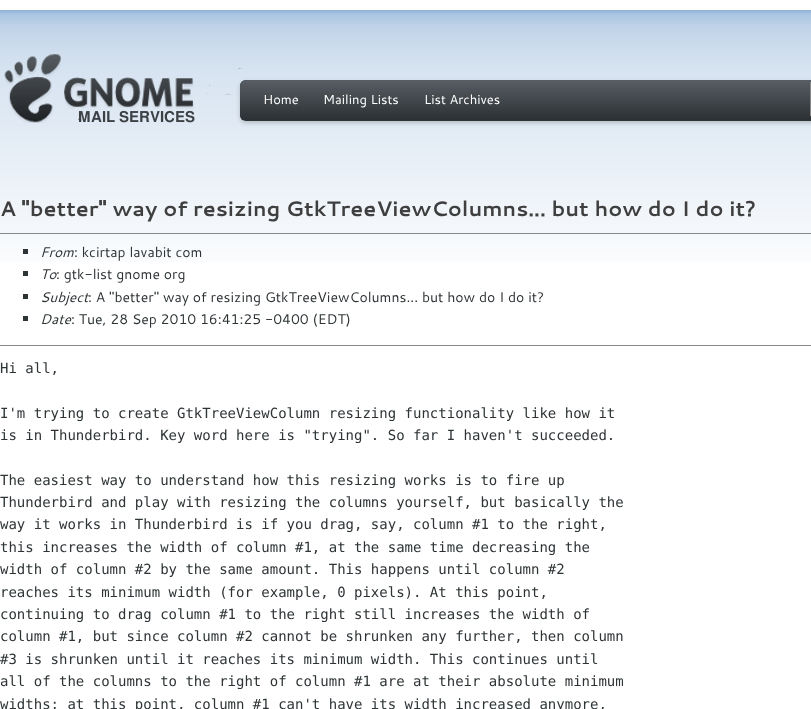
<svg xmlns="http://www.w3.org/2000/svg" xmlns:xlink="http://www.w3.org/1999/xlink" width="811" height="709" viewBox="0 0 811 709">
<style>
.cls-1{font:13px Cantarell;fill:#ffffff}
.cls-2{font:bold 21px Cantarell;fill:#3f3f3f}
.cls-3{font:italic 14px Cantarell;fill:#2e3436}
.cls-4{font:14px Cantarell;fill:#2e3436}
.cls-5{font:14px DejaVu Sans Mono;fill:#2e3436}
</style>
<rect width="100%" height="100%" fill="#ffffff"/>
<image xlink:href="image0.png" x="0" y="10" width="811" height="252"/>
<image xlink:href="image1.png" x="4" y="54" width="238" height="69"/>
<rect fill="#000000" fill-opacity="0.2" filter="blur(2px)" x="240" y="82" width="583" height="41" rx="6"/>
<rect fill="#2e3436" x="240" y="80" width="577" height="41" rx="6"/>
<image xlink:href="image2.png" x="240" y="80" width="571" height="40"/>
<rect fill="#888888" x="810" y="82" width="1" height="34"/>
<rect fill="#888888" x="0" y="233" width="811" height="1"/>
<rect fill="#2e3436" x="23" y="249" width="5" height="5"/>
<rect fill="#2e3436" x="23" y="271" width="5" height="5"/>
<rect fill="#2e3436" x="23" y="294" width="5" height="5"/>
<rect fill="#2e3436" x="23" y="316" width="5" height="5"/>
<rect fill="#888888" x="0" y="345" width="811" height="1"/>
<text class="cls-1" x="263" y="104">Home</text>
<text class="cls-1" x="323" y="104">Mailing Lists</text>
<text class="cls-1" x="424" y="104">List Archives</text>
<text class="cls-2" x="0" y="216">A "better" way of resizing GtkTreeViewColumns... but how do I do it?</text>
<text class="cls-3" x="40" y="257">From</text>
<text class="cls-4" x="74" y="257">: kcirtap lavabit com</text>
<text class="cls-3" x="40" y="279">To</text>
<text class="cls-4" x="56" y="279">: gtk-list gnome org</text>
<text class="cls-3" x="40" y="302">Subject</text>
<text class="cls-4" x="88" y="302">: A "better" way of resizing GtkTreeViewColumns... but how do I do it?</text>
<text class="cls-3" x="40" y="324">Date</text>
<text class="cls-4" x="71" y="324">: Tue, 28 Sep 2010 16:41:25 -0400 (EDT)</text>
<text class="cls-5" x="0" y="373">Hi all,</text>
<text class="cls-5"><tspan x="0" y="418">I'm trying to create GtkTreeViewColumn resizing functionality like how it</tspan><tspan x="0" y="440">is in Thunderbird. Key word here is "trying". So far I haven't succeeded.</tspan></text>
<text class="cls-5"><tspan x="0" y="485">The easiest way to understand how this resizing works is to fire up</tspan><tspan x="0" y="507">Thunderbird and play with resizing the columns yourself, but basically the</tspan><tspan x="0" y="529">way it works in Thunderbird is if you drag, say, column #1 to the right,</tspan><tspan x="0" y="552">this increases the width of column #1, at the same time decreasing the</tspan><tspan x="0" y="574">width of column #2 by the same amount. This happens until column #2</tspan><tspan x="0" y="597">reaches its minimum width (for example, 0 pixels). At this point,</tspan><tspan x="0" y="619">continuing to drag column #1 to the right still increases the width of</tspan><tspan x="0" y="641">column #1, but since column #2 cannot be shrunken any further, then column</tspan><tspan x="0" y="664">#3 is shrunken until it reaches its minimum width. This continues until</tspan><tspan x="0" y="686">all of the columns to the right of column #1 are at their absolute minimum</tspan><tspan x="0" y="709">widths; at this point, column #1 can't have its width increased anymore,</tspan></text>
</svg>
